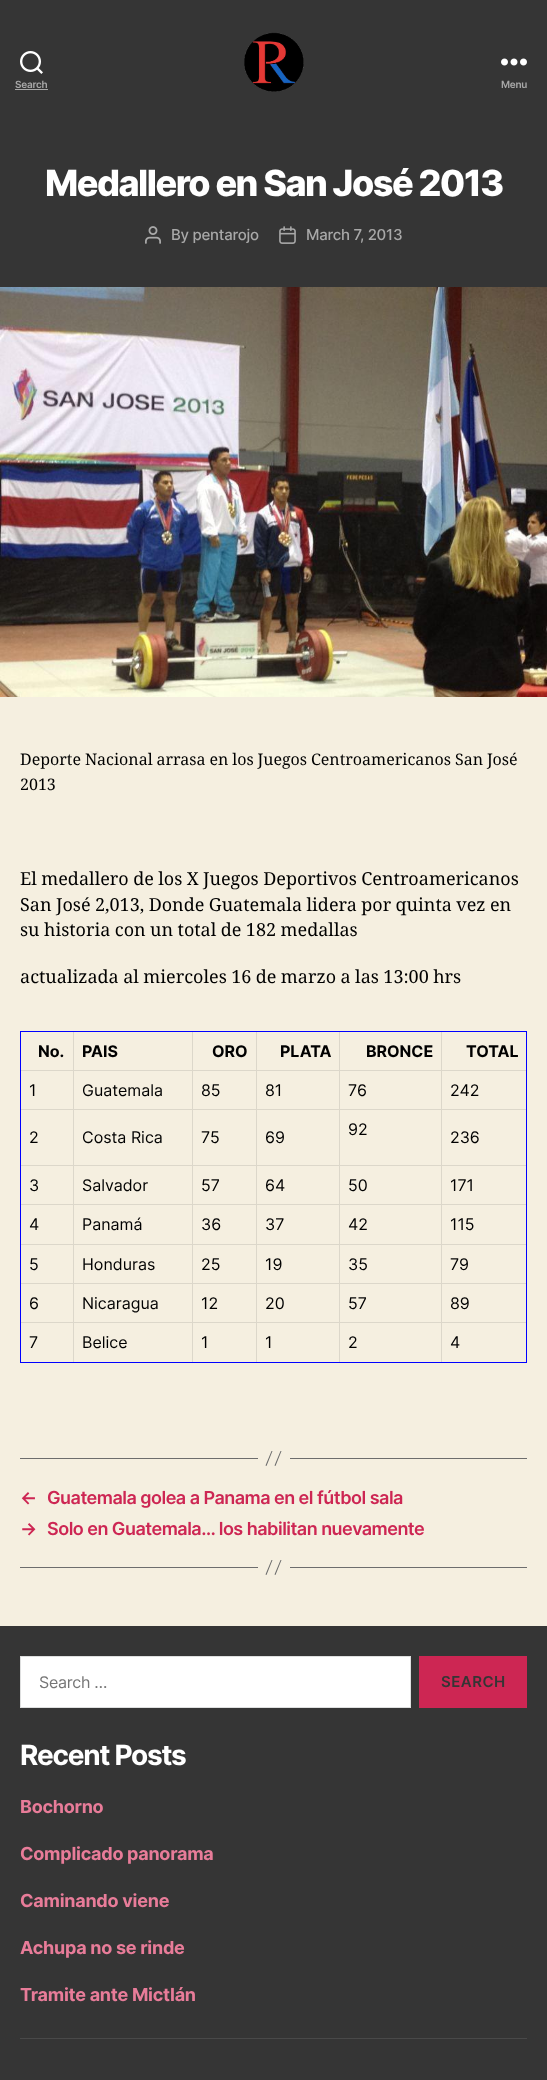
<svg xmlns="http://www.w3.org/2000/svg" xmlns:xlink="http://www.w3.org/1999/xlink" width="547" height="2080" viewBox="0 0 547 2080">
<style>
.cls-1{font:600 10px Inter;letter-spacing:-0.25px;fill:#a8a8a8}
.cls-2{font:800 36px Inter;letter-spacing:-1.5px;fill:#ffffff}
.cls-3{font:500 15px Inter;letter-spacing:-0.25px;fill:#a8a8a8}
.cls-4{font:16px Noto Serif;fill:#000000}
.cls-5{font:18px Noto Serif;fill:#000000}
.cls-6{font:bold 16px Inter;fill:#000000}
.cls-7{font:16px Inter;fill:#000000}
.cls-8{font:600 18px Inter;letter-spacing:-0.5px;fill:#cd2653}
.cls-9{font:16px Inter;letter-spacing:-0.25px;fill:#757575}
.cls-10{font:600 15px Inter;letter-spacing:0.5px;fill:#353535}
.cls-11{font:bold 28px Inter;letter-spacing:-1.2px;fill:#ffffff}
.cls-12{font:bold 18px Inter;letter-spacing:-0.25px;fill:#e87c99}
</style>
<rect width="100%" height="100%" fill="#f5efe0"/>
<rect fill="#353535" x="0" y="0" width="547" height="287"/>
<image xlink:href="image0.png" x="20" y="51" width="23" height="23"/>
<rect fill="#a8a8a8" x="15" y="89" width="33" height="1"/>
<image xlink:href="image1.png" x="244" y="32" width="60" height="60"/>
<image xlink:href="image2.png" x="501" y="58" width="26" height="8"/>
<image xlink:href="image3.png" x="145" y="226" width="16" height="18"/>
<image xlink:href="image4.png" x="279" y="226" width="17" height="18"/>
<image xlink:href="image5.png" x="0" y="287" width="547" height="410"/>
<rect fill="#0000ff" x="20" y="1031" width="507" height="1"/>
<rect fill="#0000ff" x="526" y="1031" width="1" height="332"/>
<rect fill="#0000ff" x="20" y="1362" width="507" height="1"/>
<rect fill="#0000ff" x="20" y="1031" width="1" height="332"/>
<rect fill="#dcd7ca" x="441" y="1070" width="85" height="1"/>
<rect fill="#dcd7ca" x="441" y="1109" width="85" height="1"/>
<rect fill="#dcd7ca" x="441" y="1165" width="85" height="1"/>
<rect fill="#dcd7ca" x="441" y="1204" width="85" height="1"/>
<rect fill="#dcd7ca" x="441" y="1244" width="85" height="1"/>
<rect fill="#dcd7ca" x="441" y="1283" width="85" height="1"/>
<rect fill="#dcd7ca" x="441" y="1322" width="85" height="1"/>
<rect fill="#dcd7ca" x="441" y="1322" width="1" height="40"/>
<rect fill="#dcd7ca" x="339" y="1322" width="103" height="1"/>
<rect fill="#dcd7ca" x="441" y="1283" width="1" height="40"/>
<rect fill="#dcd7ca" x="339" y="1283" width="103" height="1"/>
<rect fill="#dcd7ca" x="441" y="1244" width="1" height="40"/>
<rect fill="#dcd7ca" x="339" y="1244" width="103" height="1"/>
<rect fill="#dcd7ca" x="441" y="1204" width="1" height="41"/>
<rect fill="#dcd7ca" x="339" y="1204" width="103" height="1"/>
<rect fill="#dcd7ca" x="441" y="1165" width="1" height="40"/>
<rect fill="#dcd7ca" x="339" y="1165" width="103" height="1"/>
<rect fill="#dcd7ca" x="441" y="1109" width="1" height="57"/>
<rect fill="#dcd7ca" x="339" y="1109" width="103" height="1"/>
<rect fill="#dcd7ca" x="441" y="1070" width="1" height="40"/>
<rect fill="#dcd7ca" x="339" y="1070" width="103" height="1"/>
<rect fill="#dcd7ca" x="339" y="1322" width="1" height="40"/>
<rect fill="#dcd7ca" x="256" y="1322" width="84" height="1"/>
<rect fill="#dcd7ca" x="339" y="1283" width="1" height="40"/>
<rect fill="#dcd7ca" x="256" y="1283" width="84" height="1"/>
<rect fill="#dcd7ca" x="339" y="1244" width="1" height="40"/>
<rect fill="#dcd7ca" x="256" y="1244" width="84" height="1"/>
<rect fill="#dcd7ca" x="339" y="1204" width="1" height="41"/>
<rect fill="#dcd7ca" x="256" y="1204" width="84" height="1"/>
<rect fill="#dcd7ca" x="339" y="1165" width="1" height="40"/>
<rect fill="#dcd7ca" x="256" y="1165" width="84" height="1"/>
<rect fill="#dcd7ca" x="339" y="1109" width="1" height="57"/>
<rect fill="#dcd7ca" x="256" y="1109" width="84" height="1"/>
<rect fill="#dcd7ca" x="339" y="1070" width="1" height="40"/>
<rect fill="#dcd7ca" x="256" y="1070" width="84" height="1"/>
<rect fill="#dcd7ca" x="256" y="1322" width="1" height="40"/>
<rect fill="#dcd7ca" x="192" y="1322" width="65" height="1"/>
<rect fill="#dcd7ca" x="256" y="1283" width="1" height="40"/>
<rect fill="#dcd7ca" x="192" y="1283" width="65" height="1"/>
<rect fill="#dcd7ca" x="256" y="1244" width="1" height="40"/>
<rect fill="#dcd7ca" x="192" y="1244" width="65" height="1"/>
<rect fill="#dcd7ca" x="256" y="1204" width="1" height="41"/>
<rect fill="#dcd7ca" x="192" y="1204" width="65" height="1"/>
<rect fill="#dcd7ca" x="256" y="1165" width="1" height="40"/>
<rect fill="#dcd7ca" x="192" y="1165" width="65" height="1"/>
<rect fill="#dcd7ca" x="256" y="1109" width="1" height="57"/>
<rect fill="#dcd7ca" x="192" y="1109" width="65" height="1"/>
<rect fill="#dcd7ca" x="256" y="1070" width="1" height="40"/>
<rect fill="#dcd7ca" x="192" y="1070" width="65" height="1"/>
<rect fill="#dcd7ca" x="192" y="1322" width="1" height="40"/>
<rect fill="#dcd7ca" x="73" y="1322" width="120" height="1"/>
<rect fill="#dcd7ca" x="192" y="1283" width="1" height="40"/>
<rect fill="#dcd7ca" x="73" y="1283" width="120" height="1"/>
<rect fill="#dcd7ca" x="192" y="1244" width="1" height="40"/>
<rect fill="#dcd7ca" x="73" y="1244" width="120" height="1"/>
<rect fill="#dcd7ca" x="192" y="1204" width="1" height="41"/>
<rect fill="#dcd7ca" x="73" y="1204" width="120" height="1"/>
<rect fill="#dcd7ca" x="192" y="1165" width="1" height="40"/>
<rect fill="#dcd7ca" x="73" y="1165" width="120" height="1"/>
<rect fill="#dcd7ca" x="192" y="1109" width="1" height="57"/>
<rect fill="#dcd7ca" x="73" y="1109" width="120" height="1"/>
<rect fill="#dcd7ca" x="192" y="1070" width="1" height="40"/>
<rect fill="#dcd7ca" x="73" y="1070" width="120" height="1"/>
<rect fill="#dcd7ca" x="73" y="1322" width="1" height="40"/>
<rect fill="#dcd7ca" x="21" y="1322" width="53" height="1"/>
<rect fill="#dcd7ca" x="73" y="1283" width="1" height="40"/>
<rect fill="#dcd7ca" x="21" y="1283" width="53" height="1"/>
<rect fill="#dcd7ca" x="73" y="1244" width="1" height="40"/>
<rect fill="#dcd7ca" x="21" y="1244" width="53" height="1"/>
<rect fill="#dcd7ca" x="73" y="1204" width="1" height="41"/>
<rect fill="#dcd7ca" x="21" y="1204" width="53" height="1"/>
<rect fill="#dcd7ca" x="73" y="1165" width="1" height="40"/>
<rect fill="#dcd7ca" x="21" y="1165" width="53" height="1"/>
<rect fill="#dcd7ca" x="73" y="1109" width="1" height="57"/>
<rect fill="#dcd7ca" x="21" y="1109" width="53" height="1"/>
<rect fill="#dcd7ca" x="73" y="1070" width="1" height="40"/>
<rect fill="#dcd7ca" x="21" y="1070" width="53" height="1"/>
<rect fill="#dcd7ca" x="73" y="1032" width="1" height="39"/>
<rect fill="#dcd7ca" x="192" y="1032" width="1" height="39"/>
<rect fill="#dcd7ca" x="256" y="1032" width="1" height="39"/>
<rect fill="#dcd7ca" x="339" y="1032" width="1" height="39"/>
<rect fill="#dcd7ca" x="441" y="1032" width="1" height="39"/>
<rect fill="#6d6d6d" x="290" y="1458" width="237" height="1"/>
<rect fill="#6d6d6d" x="20" y="1458" width="238" height="1"/>
<path fill="#6d6d6d" d="M271.5 1451H272.5L266.5 1466L265.5 1465.5ZM280.5 1451H281.5L275.5 1466L274.5 1465.5Z"/>
<rect fill="#6d6d6d" x="290" y="1567" width="237" height="1"/>
<rect fill="#6d6d6d" x="20" y="1567" width="238" height="1"/>
<path fill="#6d6d6d" d="M271.5 1560H272.5L266.5 1575L265.5 1574.5ZM280.5 1560H281.5L275.5 1575L274.5 1574.5Z"/>
<rect fill="#353535" x="0" y="1626" width="547" height="454"/>
<rect fill="#494949" x="20" y="2038" width="507" height="1"/>
<rect fill="#ffffff" stroke="#dedfdf" x="20.5" y="1656.5" width="390" height="51"/>
<rect fill="#cd2653" x="419" y="1656" width="108" height="52"/>
<text class="cls-1" x="15" y="88">Search</text>
<text class="cls-1" x="501" y="88">Menu</text>
<text class="cls-2" x="45" y="196">Medallero en San José 2013</text>
<text class="cls-3" x="171" y="240">By pentarojo</text>
<text class="cls-3" x="306" y="240">March 7, 2013</text>
<text class="cls-4"><tspan x="20" y="765" word-spacing="-0.25">Deporte Nacional arrasa en los Juegos Centroamericanos San José</tspan><tspan x="20" y="790">2013</tspan></text>
<text class="cls-5"><tspan x="20" y="885" word-spacing="-0.25">El medallero de los X Juegos Deportivos Centroamericanos</tspan><tspan x="20" y="911" word-spacing="-0.25">San José 2,013, Donde Guatemala lidera por quinta vez en</tspan><tspan x="20" y="936" word-spacing="-0.25">su historia con un total de 182 medallas</tspan></text>
<text class="cls-5" x="20" y="983" word-spacing="-0.25">actualizada al miercoles 16 de marzo a las 13:00 hrs</text>
<text class="cls-6" x="38" y="1057">No.</text>
<text class="cls-6" x="82" y="1057">PAIS</text>
<text class="cls-6" x="212" y="1057">ORO</text>
<text class="cls-6" x="280" y="1057">PLATA</text>
<text class="cls-6" x="366" y="1057">BRONCE</text>
<text class="cls-6" x="466" y="1057">TOTAL</text>
<text class="cls-7" x="29" y="1096">1</text>
<text class="cls-7" x="82" y="1096">Guatemala</text>
<text class="cls-7" x="201" y="1096">85</text>
<text class="cls-7" x="265" y="1096">81</text>
<text class="cls-7" x="348" y="1096">76</text>
<text class="cls-7" x="450" y="1096">242</text>
<text class="cls-7" x="29" y="1143">2</text>
<text class="cls-7" x="82" y="1143">Costa Rica</text>
<text class="cls-7" x="201" y="1143">75</text>
<text class="cls-7" x="265" y="1143">69</text>
<text class="cls-7" x="348" y="1135">92</text>
<text class="cls-7" x="450" y="1143">236</text>
<text class="cls-7" x="29" y="1191">3</text>
<text class="cls-7" x="82" y="1191">Salvador</text>
<text class="cls-7" x="201" y="1191">57</text>
<text class="cls-7" x="265" y="1191">64</text>
<text class="cls-7" x="348" y="1191">50</text>
<text class="cls-7" x="450" y="1191">171</text>
<text class="cls-7" x="29" y="1230">4</text>
<text class="cls-7" x="82" y="1230">Panamá</text>
<text class="cls-7" x="201" y="1230">36</text>
<text class="cls-7" x="265" y="1230">37</text>
<text class="cls-7" x="348" y="1230">42</text>
<text class="cls-7" x="450" y="1230">115</text>
<text class="cls-7" x="29" y="1270">5</text>
<text class="cls-7" x="82" y="1270">Honduras</text>
<text class="cls-7" x="201" y="1270">25</text>
<text class="cls-7" x="265" y="1270">19</text>
<text class="cls-7" x="348" y="1270">35</text>
<text class="cls-7" x="450" y="1270">79</text>
<text class="cls-7" x="29" y="1309">6</text>
<text class="cls-7" x="82" y="1309">Nicaragua</text>
<text class="cls-7" x="201" y="1309">12</text>
<text class="cls-7" x="265" y="1309">20</text>
<text class="cls-7" x="348" y="1309">57</text>
<text class="cls-7" x="450" y="1309">89</text>
<text class="cls-7" x="29" y="1348">7</text>
<text class="cls-7" x="82" y="1348">Belice</text>
<text class="cls-7" x="201" y="1348">1</text>
<text class="cls-7" x="265" y="1348">1</text>
<text class="cls-7" x="348" y="1348">2</text>
<text class="cls-7" x="450" y="1348">4</text>
<text class="cls-8" x="20" y="1504">←</text>
<text class="cls-8" x="47" y="1504">Guatemala golea a Panama en el fútbol sala</text>
<text class="cls-8" x="20" y="1535">→</text>
<text class="cls-8" x="47" y="1535">Solo en Guatemala… los habilitan nuevamente</text>
<text class="cls-9" x="39" y="1688">Search …</text>
<text class="cls-10" x="441" y="1687">SEARCH</text>
<text class="cls-11" x="20" y="1765">Recent Posts</text>
<text class="cls-12" x="20" y="1813">Bochorno</text>
<text class="cls-12" x="20" y="1860">Complicado panorama</text>
<text class="cls-12" x="20" y="1907">Caminando viene</text>
<text class="cls-12" x="20" y="1954">Achupa no se rinde</text>
<text class="cls-12" x="20" y="2001">Tramite ante Mictlán</text>
</svg>
